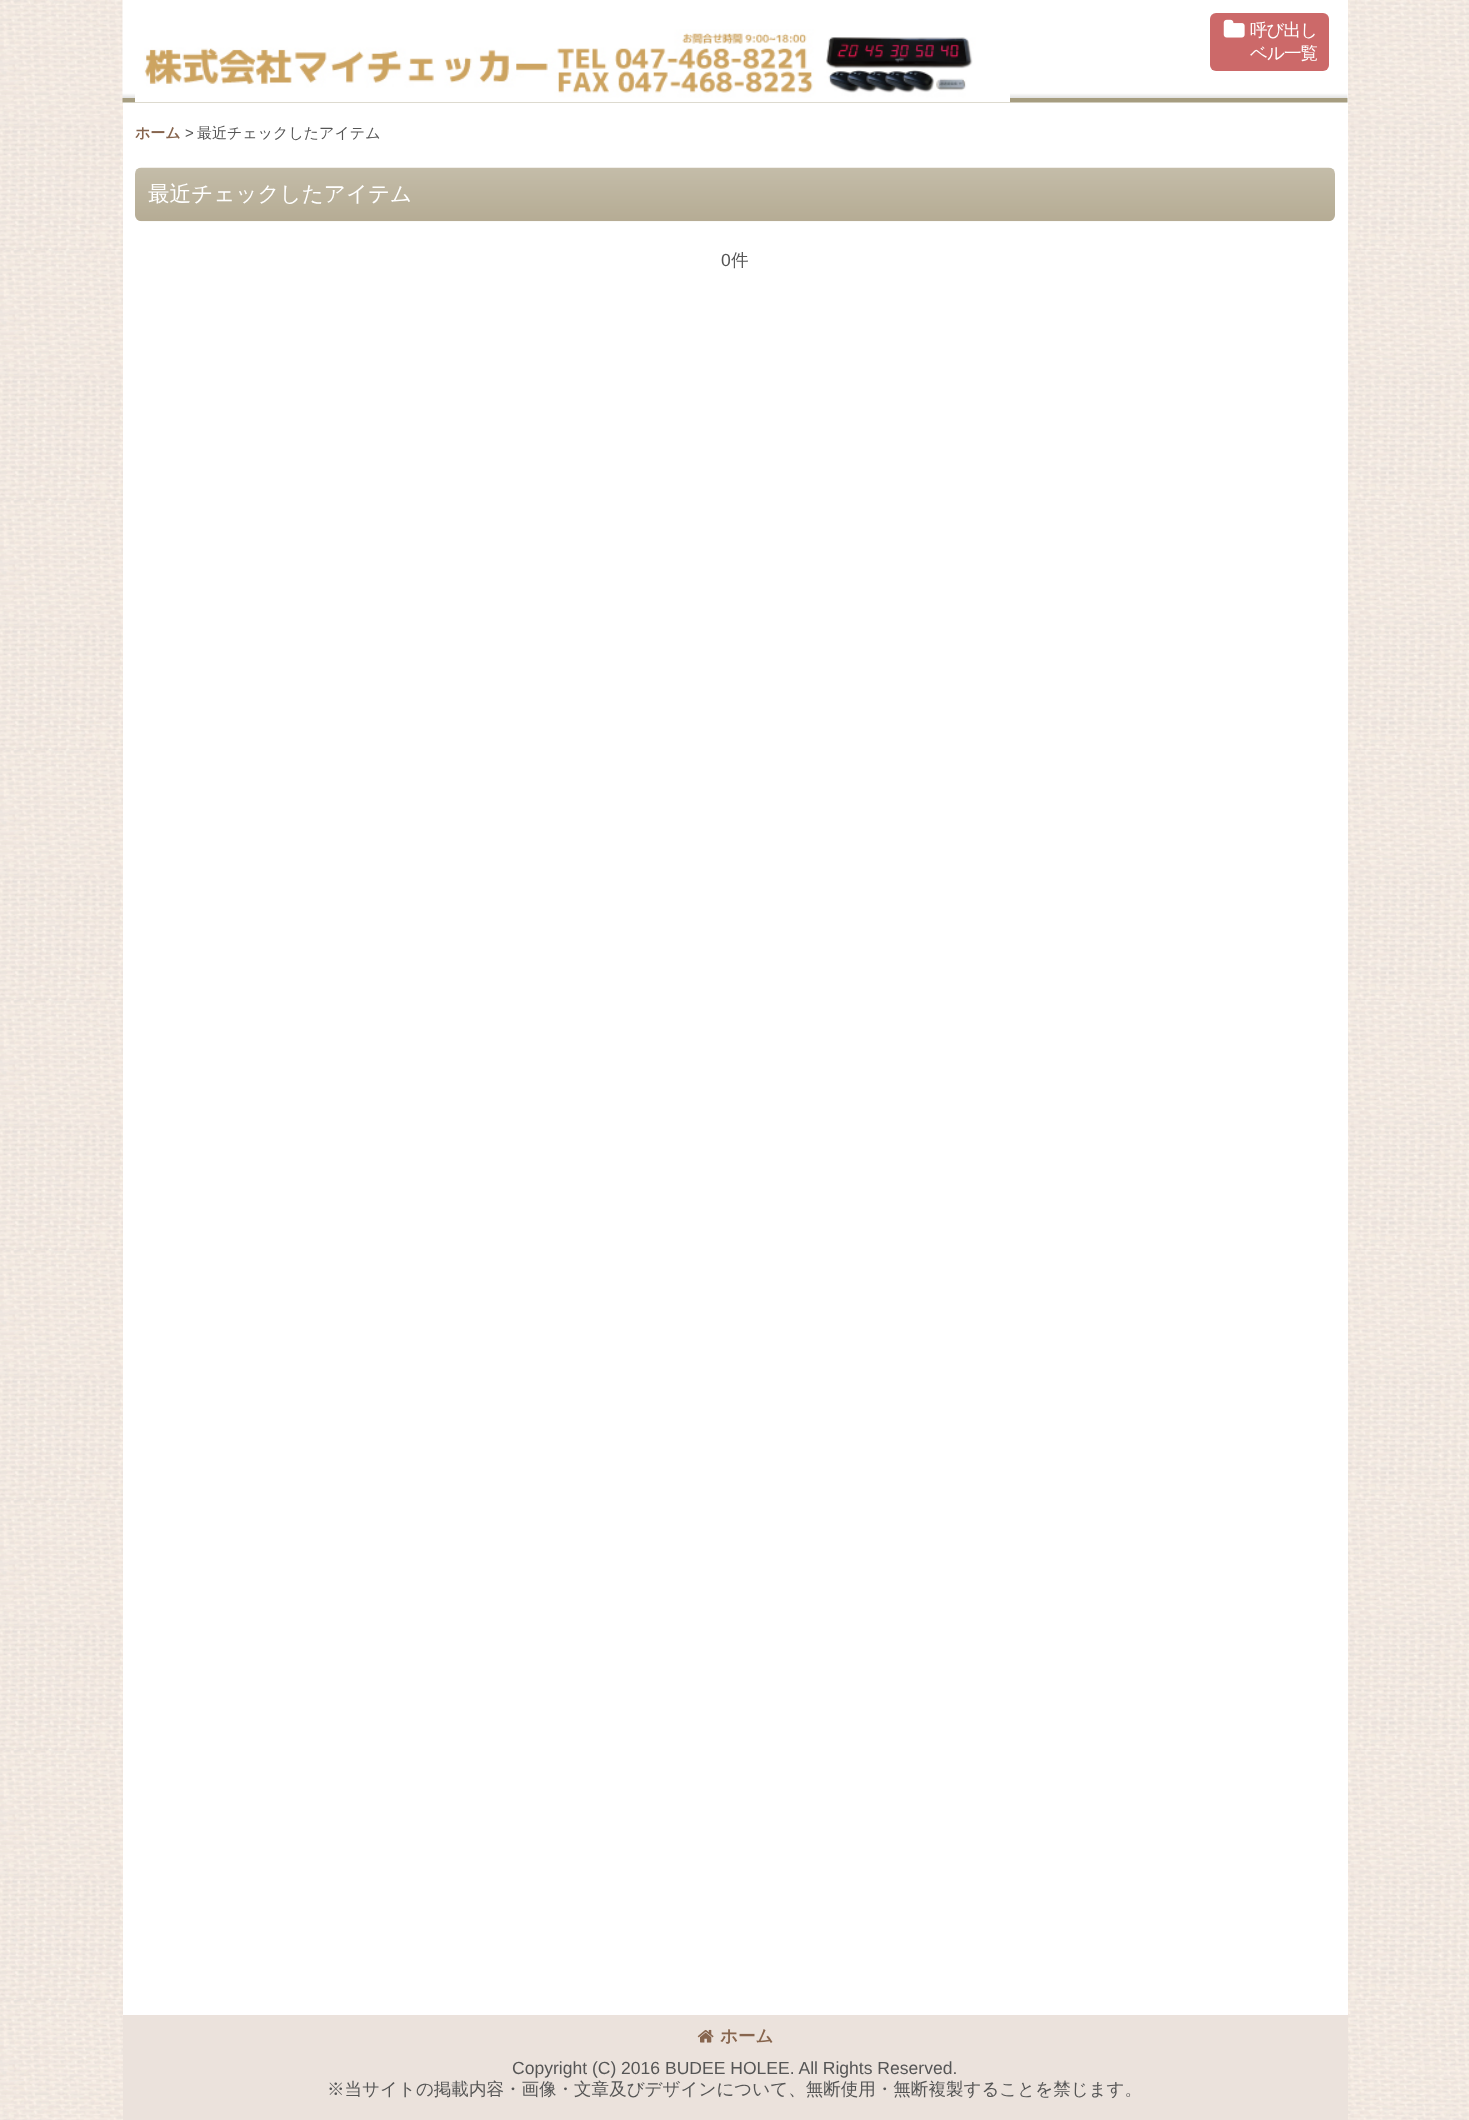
<svg xmlns="http://www.w3.org/2000/svg" xmlns:xlink="http://www.w3.org/1999/xlink" width="1469" height="2120" viewBox="0 0 1469 2120">
<style>
.cls-1{font:500 17.55px WenQuanYi Zen Hei;letter-spacing:-1px;fill:#ffffff}
.cls-2{font:bold 15px WenQuanYi Zen Hei;fill:#87654e}
.cls-3{font:15px Liberation Sans;fill:#555555}
.cls-4{font:500 15px WenQuanYi Zen Hei;fill:#555555}
.cls-5{font:500 21.6px WenQuanYi Zen Hei;fill:#ffffff}
.cls-6{font:17.55px Liberation Sans;fill:#555555}
.cls-7{font:500 17.55px WenQuanYi Zen Hei;fill:#555555}
.cls-8{font:bold 17.55px WenQuanYi Zen Hei;fill:#87654e}
</style>
<rect width="100%" height="100%" fill="#ffffff"/>
<image xlink:href="image0.png" x="0" y="0" width="1469" height="2120"/>
<rect fill="#ffffff" x="123" y="0" width="1225" height="2015"/>
<image xlink:href="image1.png" x="122" y="0" width="1226" height="103"/>
<image xlink:href="image2.png" x="135" y="29" width="875" height="74"/>
<rect fill="#cc6969" x="1210" y="13" width="119" height="58" rx="6"/>
<image xlink:href="image3.png" x="1223" y="19" width="22" height="19"/>
<image xlink:href="image4.png" x="135" y="167" width="1200" height="55"/>
<rect fill="#ebe2dc" x="123" y="2015" width="1225" height="105"/>
<image xlink:href="image5.png" x="697" y="2029" width="17" height="14"/>
<text class="cls-1"><tspan x="1250" y="36">呼び出し</tspan><tspan x="1250" y="59">ベル一覧</tspan></text>
<text class="cls-2" x="135" y="138">ホーム</text>
<text class="cls-3" x="185" y="138">&gt;</text>
<text class="cls-4" x="197" y="138">最近チェックしたアイテム</text>
<text class="cls-5" x="148" y="201">最近チェックしたアイテム</text>
<text class="cls-6" x="721" y="266">0</text>
<text class="cls-7" x="731" y="266">件</text>
<text class="cls-8" x="720" y="2042">ホーム</text>
<text class="cls-6" x="512" y="2074">Copyright (C) 2016 BUDEE HOLEE. All Rights Reserved.</text>
<text class="cls-7" x="327" y="2095">※当サイトの掲載内容・画像・文章及びデザインについて、無断使用・無断複製することを禁じます。</text>
</svg>
